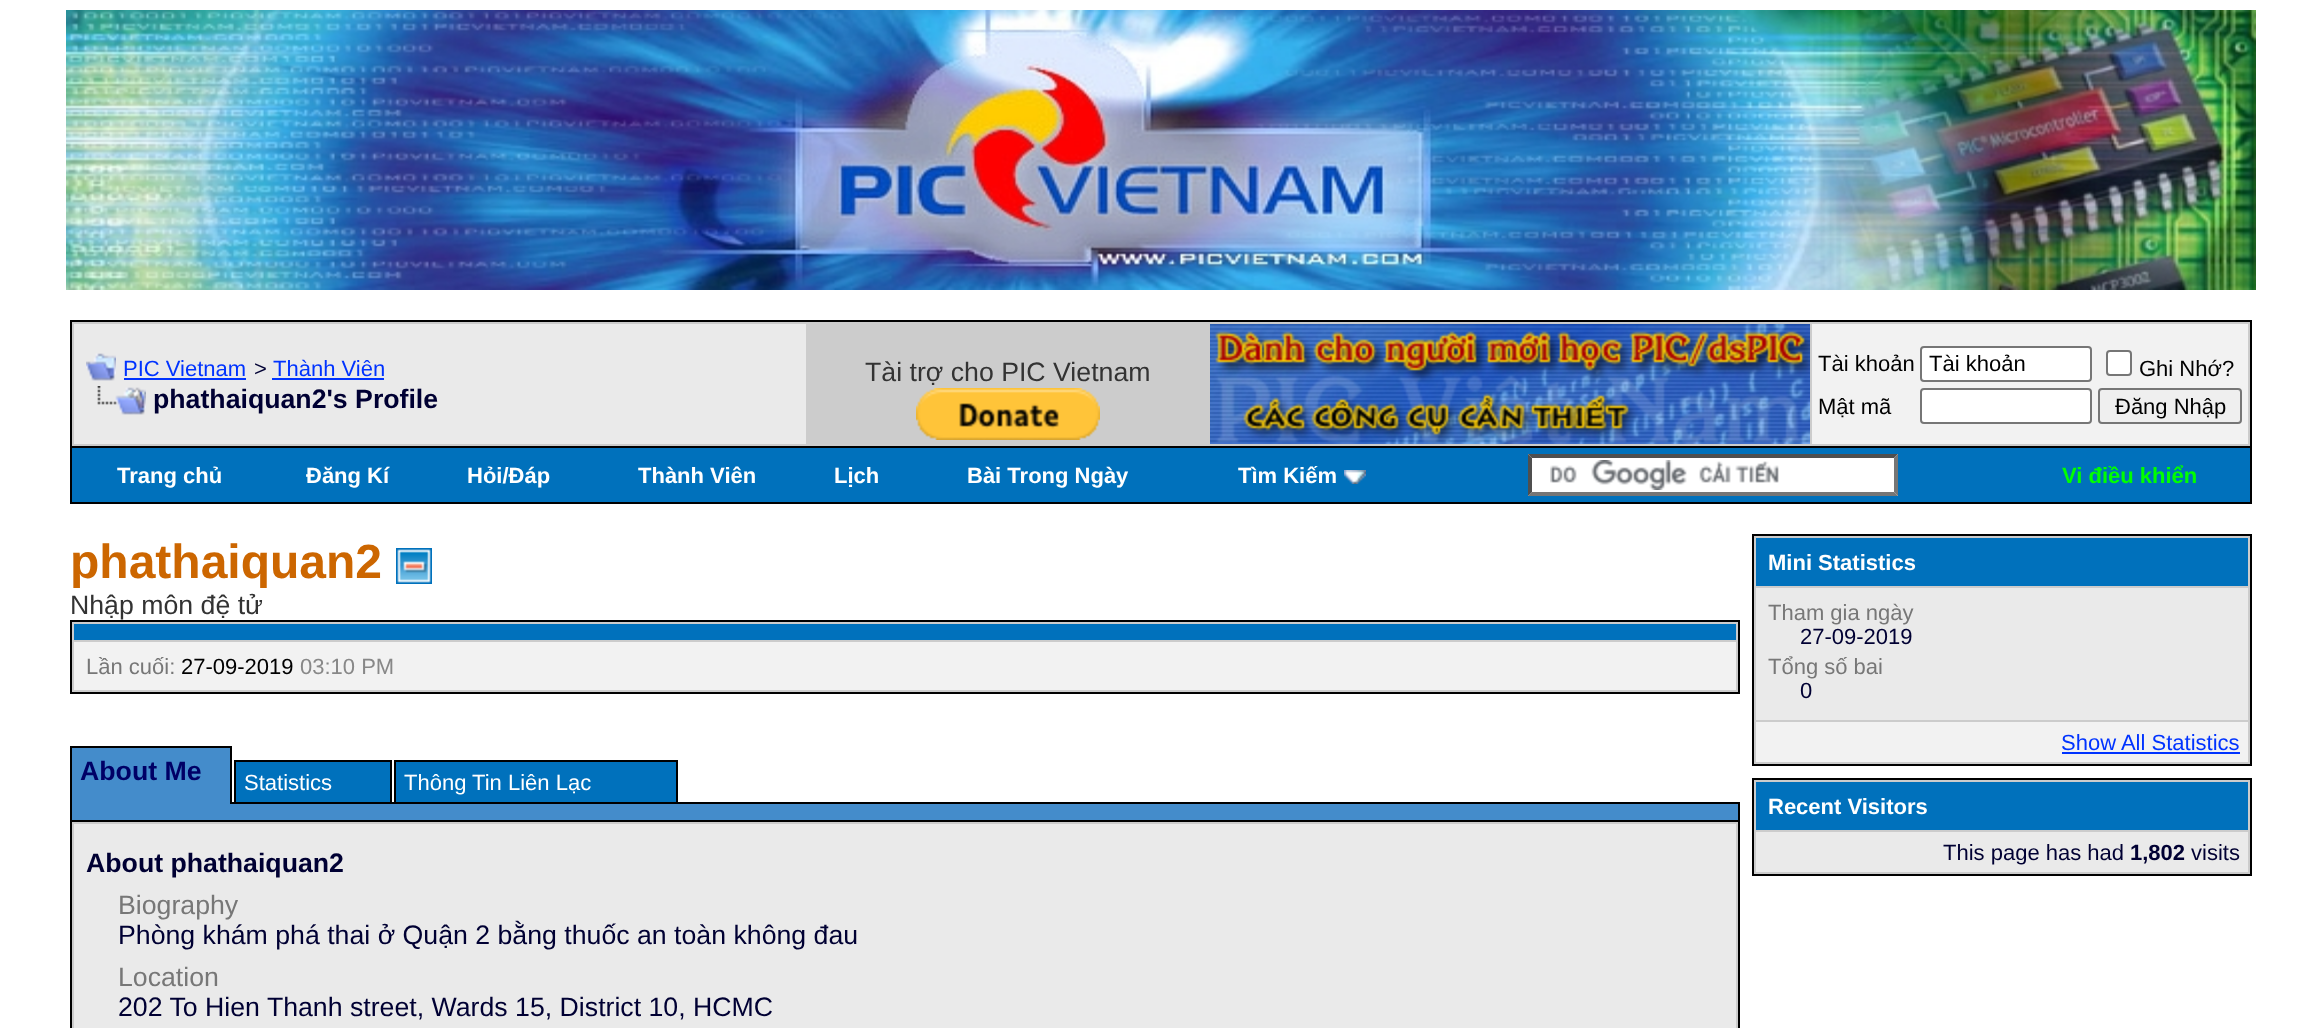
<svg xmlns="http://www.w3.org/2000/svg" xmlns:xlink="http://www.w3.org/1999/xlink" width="2321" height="1028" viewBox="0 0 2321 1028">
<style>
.cls-1{font:22px Liberation Sans;fill:#0033ff}
.cls-2{font:22px Liberation Sans;fill:#000033}
.cls-3{font:bold 26.7px Liberation Sans;fill:#000033}
.cls-4{font:26.7px Liberation Sans;fill:#333333}
.cls-5{font:22px Liberation Sans;fill:#000000}
.cls-6{font:bold 22px Liberation Sans;fill:#ffffff}
.cls-7{font:bold 22px Liberation Sans;fill:#00ff00}
.cls-8{font:bold 48px Liberation Sans;fill:#cc6600}
.cls-9{font:22px Liberation Sans;fill:#777777}
.cls-10{font:22px Liberation Sans;fill:#888888}
.cls-11{font:bold 26.7px Liberation Sans;fill:#000066}
.cls-12{font:22px Liberation Sans;fill:#ffffff}
.cls-13{font:26.7px Liberation Sans;fill:#777777}
.cls-14{font:26.7px Liberation Sans;fill:#000033}
.cls-15{font:bold 22px Liberation Sans;fill:#000033}
</style>
<rect width="100%" height="100%" fill="#ffffff"/>
<image xlink:href="image0.png" x="66" y="10" width="2190" height="280"/>
<rect fill="#cccccc" stroke="#000000" stroke-width="2" x="71" y="321" width="2180" height="126"/>
<rect fill="#eaeaea" x="74" y="324" width="732" height="120"/>
<image xlink:href="image1.png" x="86" y="353" width="30" height="28"/>
<rect fill="#0033ff" x="124" y="378" width="122" height="2"/>
<rect fill="#0033ff" x="272" y="378" width="112" height="2"/>
<image xlink:href="image2.png" x="97" y="386" width="49" height="29"/>
<image xlink:href="image3.png" x="916" y="388" width="184" height="52"/>
<image xlink:href="image4.png" x="1210" y="324" width="600" height="120"/>
<rect fill="#f2f2f2" x="1812" y="324" width="436" height="120"/>
<rect fill="#ffffff" stroke="#767676" stroke-width="2" x="1921" y="347" width="170" height="34" rx="3"/>
<rect fill="#ffffff" stroke="#767676" stroke-width="2" x="2107" y="351" width="24" height="24" rx="3"/>
<rect fill="#ffffff" stroke="#767676" stroke-width="2" x="1921" y="389" width="170" height="34" rx="3"/>
<rect fill="#efefef" stroke="#767676" stroke-width="2" x="2099" y="389" width="142" height="34" rx="3"/>
<rect fill="#000000" x="2250" y="448" width="2" height="56"/>
<rect fill="#000000" x="70" y="502" width="2182" height="2"/>
<rect fill="#000000" x="70" y="448" width="2" height="56"/>
<rect fill="#0071bc" x="72" y="448" width="2178" height="54"/>
<image xlink:href="image5.png" x="1344" y="470" width="22" height="14"/>
<rect fill="#ffffff" x="1528" y="454" width="370" height="42"/>
<image xlink:href="image6.png" x="1550" y="460" width="229" height="30"/>
<path fill="#4f4f4f" d="M1528 454H1898L1894 458H1532Z"/>
<path fill="#767676" d="M1898 454V496L1894 492V458Z"/>
<path fill="#767676" d="M1898 496H1528L1532 492H1894Z"/>
<path fill="#4f4f4f" d="M1528 496V454L1532 458V492Z"/>
<image xlink:href="image7.png" x="396" y="548" width="36" height="36"/>
<rect fill="#cccccc" stroke="#000000" stroke-width="2" x="71" y="621" width="1668" height="72"/>
<rect fill="#0071bc" x="74" y="624" width="1662" height="16"/>
<rect fill="#f2f2f2" x="74" y="642" width="1662" height="48"/>
<rect fill="#448ccb" x="72" y="748" width="158" height="56"/>
<rect fill="#000000" x="70" y="746" width="162" height="2"/>
<rect fill="#000000" x="230" y="746" width="2" height="58"/>
<rect fill="#000000" x="70" y="802" width="2" height="18"/>
<rect fill="#000000" x="70" y="746" width="2" height="58"/>
<rect fill="#000000" x="232" y="802" width="1508" height="2"/>
<rect fill="#0071bc" stroke="#000000" stroke-width="2" x="235" y="761" width="156" height="42"/>
<rect fill="#0071bc" stroke="#000000" stroke-width="2" x="395" y="761" width="282" height="42"/>
<rect fill="#448ccb" x="72" y="804" width="1666" height="16"/>
<rect fill="#000000" x="1738" y="802" width="2" height="18"/>
<rect fill="#cccccc" stroke="#000000" stroke-width="2" x="71" y="821" width="1668" height="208"/>
<rect fill="#eaeaea" x="74" y="824" width="1662" height="204"/>
<rect fill="#cccccc" stroke="#000000" stroke-width="2" x="1753" y="535" width="498" height="230"/>
<rect fill="#0071bc" x="1756" y="538" width="492" height="48"/>
<rect fill="#eaeaea" x="1756" y="588" width="492" height="132"/>
<rect fill="#f2f2f2" x="1756" y="722" width="492" height="40"/>
<rect fill="#0033ff" x="2062" y="752" width="178" height="2"/>
<rect fill="#cccccc" stroke="#000000" stroke-width="2" x="1753" y="779" width="498" height="96"/>
<rect fill="#0071bc" x="1756" y="782" width="492" height="48"/>
<rect fill="#eaeaea" x="1756" y="832" width="492" height="40"/>
<text class="cls-1" x="123" y="376">PIC Vietnam</text>
<text class="cls-2" x="254" y="376">&gt;</text>
<text class="cls-1" x="273" y="376">Thành Viên</text>
<text class="cls-3" x="153" y="408">phathaiquan2's Profile</text>
<text class="cls-4" x="865" y="381">Tài trợ cho PIC Vietnam</text>
<text class="cls-5" x="1818" y="371">Tài khoản</text>
<text class="cls-5" x="1929" y="371">Tài khoản</text>
<text class="cls-5" x="2139" y="376">Ghi Nhớ?</text>
<text class="cls-5" x="1818" y="414">Mật mã</text>
<text class="cls-5" x="2115" y="414">Ðăng Nhập</text>
<text class="cls-6" x="117" y="483">Trang chủ</text>
<text class="cls-6" x="306" y="483">Đăng Kí</text>
<text class="cls-6" x="467" y="483">Hỏi/Ðáp</text>
<text class="cls-6" x="638" y="483">Thành Viên</text>
<text class="cls-6" x="834" y="483">Lịch</text>
<text class="cls-6" x="967" y="483">Bài Trong Ngày</text>
<text class="cls-6" x="1238" y="483">Tìm Kiếm</text>
<text class="cls-7" x="2062" y="483">Vi điều khiển</text>
<text class="cls-8" x="70" y="578">phathaiquan2</text>
<text class="cls-4" x="70" y="614">Nhập môn đệ tử</text>
<text class="cls-9" x="86" y="674">Lần cuối:</text>
<text class="cls-5" x="181" y="674">27-09-2019</text>
<text class="cls-10" x="300" y="674">03:10 PM</text>
<text class="cls-11" x="80" y="780">About Me</text>
<text class="cls-12" x="244" y="790">Statistics</text>
<text class="cls-12" x="404" y="790">Thông Tin Liên Lạc</text>
<text class="cls-3" x="86" y="872">About phathaiquan2</text>
<text class="cls-13" x="118" y="914">Biography</text>
<text class="cls-14" x="118" y="944">Phòng khám phá thai ở Quận 2 bằng thuốc an toàn không đau</text>
<text class="cls-13" x="118" y="986">Location</text>
<text class="cls-14" x="118" y="1016">202 To Hien Thanh street, Wards 15, District 10, HCMC</text>
<text class="cls-6" x="1768" y="570">Mini Statistics</text>
<text class="cls-9" x="1768" y="620">Tham gia ngày</text>
<text class="cls-2" x="1800" y="644">27-09-2019</text>
<text class="cls-9" x="1768" y="674">Tổng số bai</text>
<text class="cls-2" x="1800" y="698">0</text>
<text class="cls-1" x="2061" y="750">Show All Statistics</text>
<text class="cls-6" x="1768" y="814">Recent Visitors</text>
<text class="cls-2" x="1943" y="860">This page has had</text>
<text class="cls-15" x="2130" y="860">1,802</text>
<text class="cls-2" x="2191" y="860">visits</text>
</svg>
